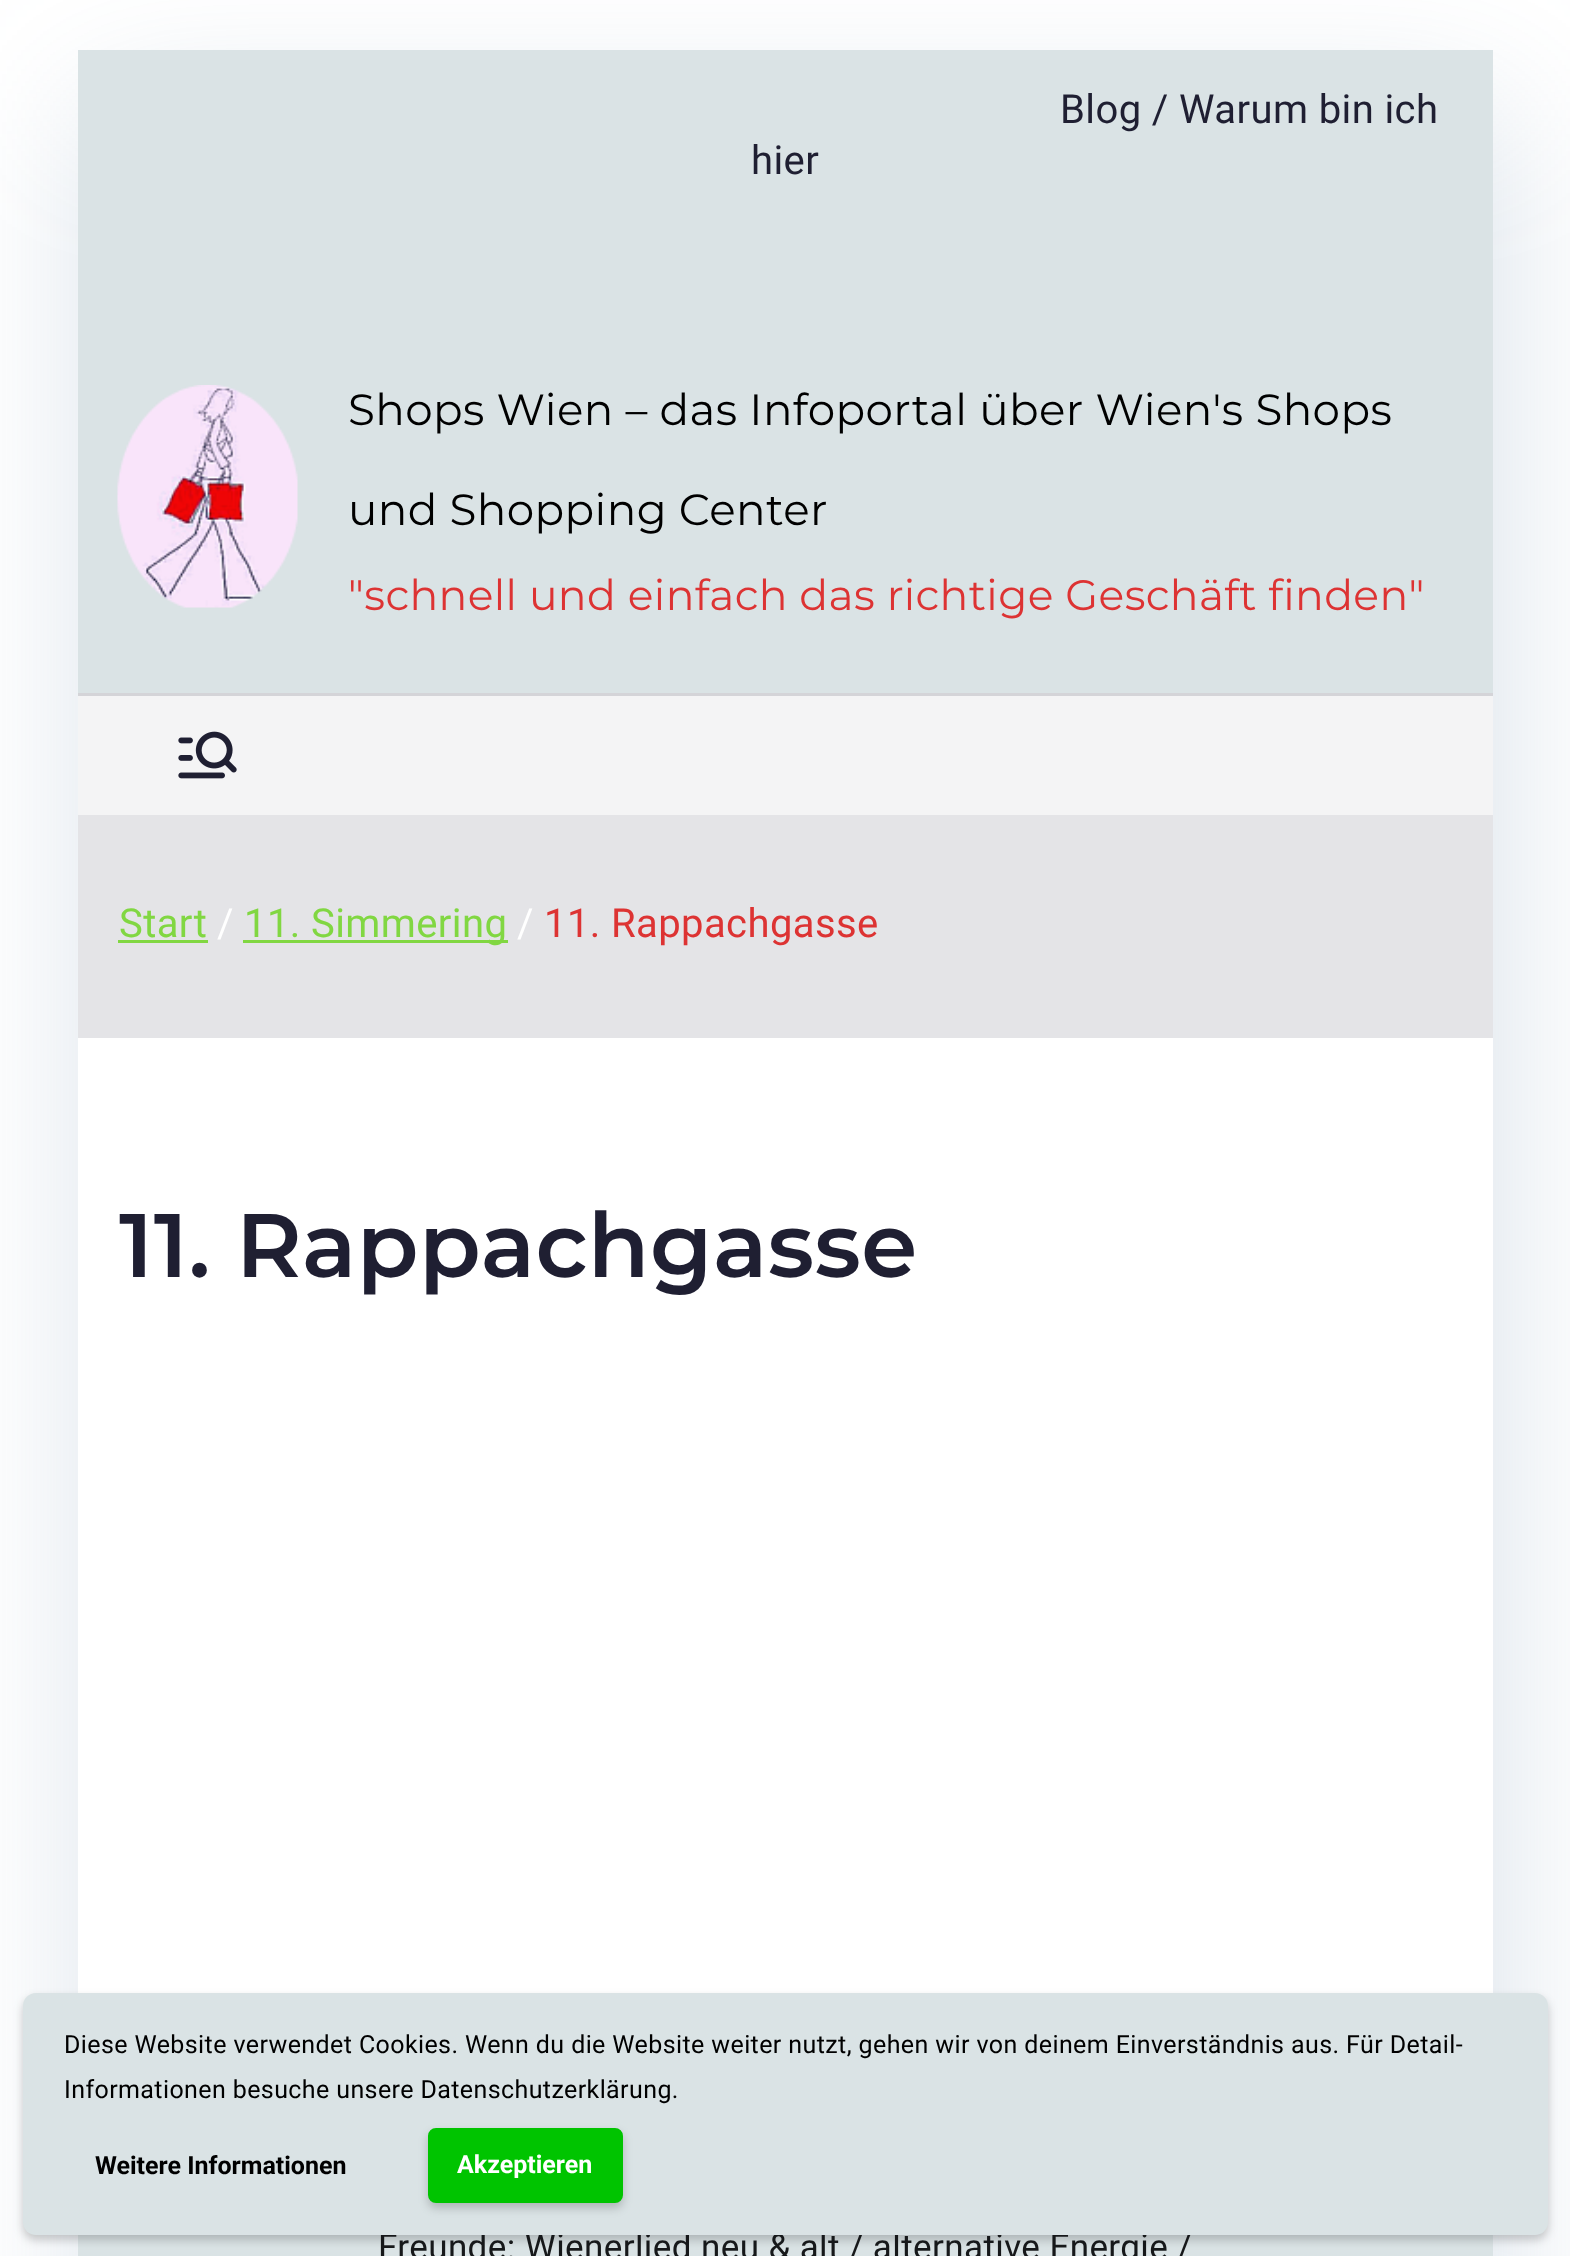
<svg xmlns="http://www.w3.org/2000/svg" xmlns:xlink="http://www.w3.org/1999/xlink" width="1570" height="2256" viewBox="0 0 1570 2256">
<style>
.cls-1{font:40px Roboto;letter-spacing:0.4px;fill:#1f1f32}
.cls-2{font:43.7px Montserrat;letter-spacing:0.4px;fill:#000000}
.cls-3{font:42.5px Montserrat;letter-spacing:0.4px;fill:#dd3333}
.cls-4{font:40px Roboto;letter-spacing:0.4px;fill:#81d742}
.cls-5{font:40px Roboto;letter-spacing:0.4px;fill:#ffffff}
.cls-6{font:40px Roboto;letter-spacing:0.4px;fill:#dd3333}
.cls-7{font:600 90px Montserrat;letter-spacing:0.4px;fill:#1f1f32}
.cls-8{font:35px Roboto;letter-spacing:0.4px;fill:#16181a}
.cls-9{font:25px Roboto;letter-spacing:0.4px;fill:#000000}
.cls-10{font:bold 25px Roboto;fill:#000000}
.cls-11{font:bold 25px Roboto;fill:#ffffff}
</style>
<rect width="100%" height="100%" fill="#ffffff"/>
<rect fill="#6d8dad" fill-opacity="0.25" filter="blur(75px)" x="88" y="110" width="1415" height="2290"/>
<rect fill="#dae3e5" x="78" y="50" width="1415" height="643"/>
<image xlink:href="image0.png" x="117" y="385" width="181" height="223"/>
<rect fill="#f4f4f5" x="78" y="696" width="1415" height="119"/>
<rect fill="#d4d4d8" x="78" y="693" width="1415" height="3"/>
<image xlink:href="image1.png" x="178" y="731" width="59" height="48"/>
<rect fill="#e4e4e7" x="78" y="815" width="1415" height="223"/>
<rect fill="#81d742" x="118" y="940" width="90" height="3"/>
<rect fill="#81d742" x="243" y="940" width="265" height="3"/>
<rect fill="#ffffff" x="78" y="1038" width="1415" height="955"/>
<rect fill="#dae3e5" x="78" y="2235" width="1415" height="21"/>
<rect fill="#000000" fill-opacity="0.2" filter="blur(5px)" x="23" y="1998" width="1525" height="242" rx="13"/>
<text class="cls-1" x="1060" y="123">Blog / Warum bin ich</text>
<text class="cls-1" x="751" y="174">hier</text>
<text class="cls-2" x="348" y="425">Shops Wien – das Infoportal über Wien's Shops</text>
<text class="cls-2" x="348" y="525">und Shopping Center</text>
<text class="cls-3" x="348" y="610">"schnell und einfach das richtige Geschäft finden"</text>
<text class="cls-4" x="119" y="937">Start</text>
<text class="cls-5" x="217" y="937">/</text>
<text class="cls-4" x="244" y="937">11. Simmering</text>
<text class="cls-5" x="517" y="937">/</text>
<text class="cls-6" x="544" y="937">11. Rappachgasse</text>
<text class="cls-7" x="119" y="1277">11. Rappachgasse</text>
<text class="cls-8" x="378" y="2259">Freunde: Wienerlied neu &amp; alt / alternative Energie /</text>
<rect fill="#dae3e5" x="23" y="1993" width="1525" height="242" rx="13"/>
<text class="cls-9"><tspan x="64" y="2053">Diese Website verwendet Cookies. Wenn du die Website weiter nutzt, gehen wir von deinem Einverständnis aus. Für Detail-</tspan><tspan x="64" y="2098">Informationen besuche unsere Datenschutzerklärung.</tspan></text>
<text class="cls-10" x="95" y="2174">Weitere Informationen</text>
<rect fill="#000000" fill-opacity="0.2" filter="blur(5px)" x="428" y="2133" width="195" height="75" rx="8"/>
<rect fill="#00c400" stroke="#00c400" stroke-width="3" x="429.5" y="2129.5" width="192" height="72" rx="6.5"/>
<text class="cls-11" x="457" y="2173">Akzeptieren</text>
</svg>
